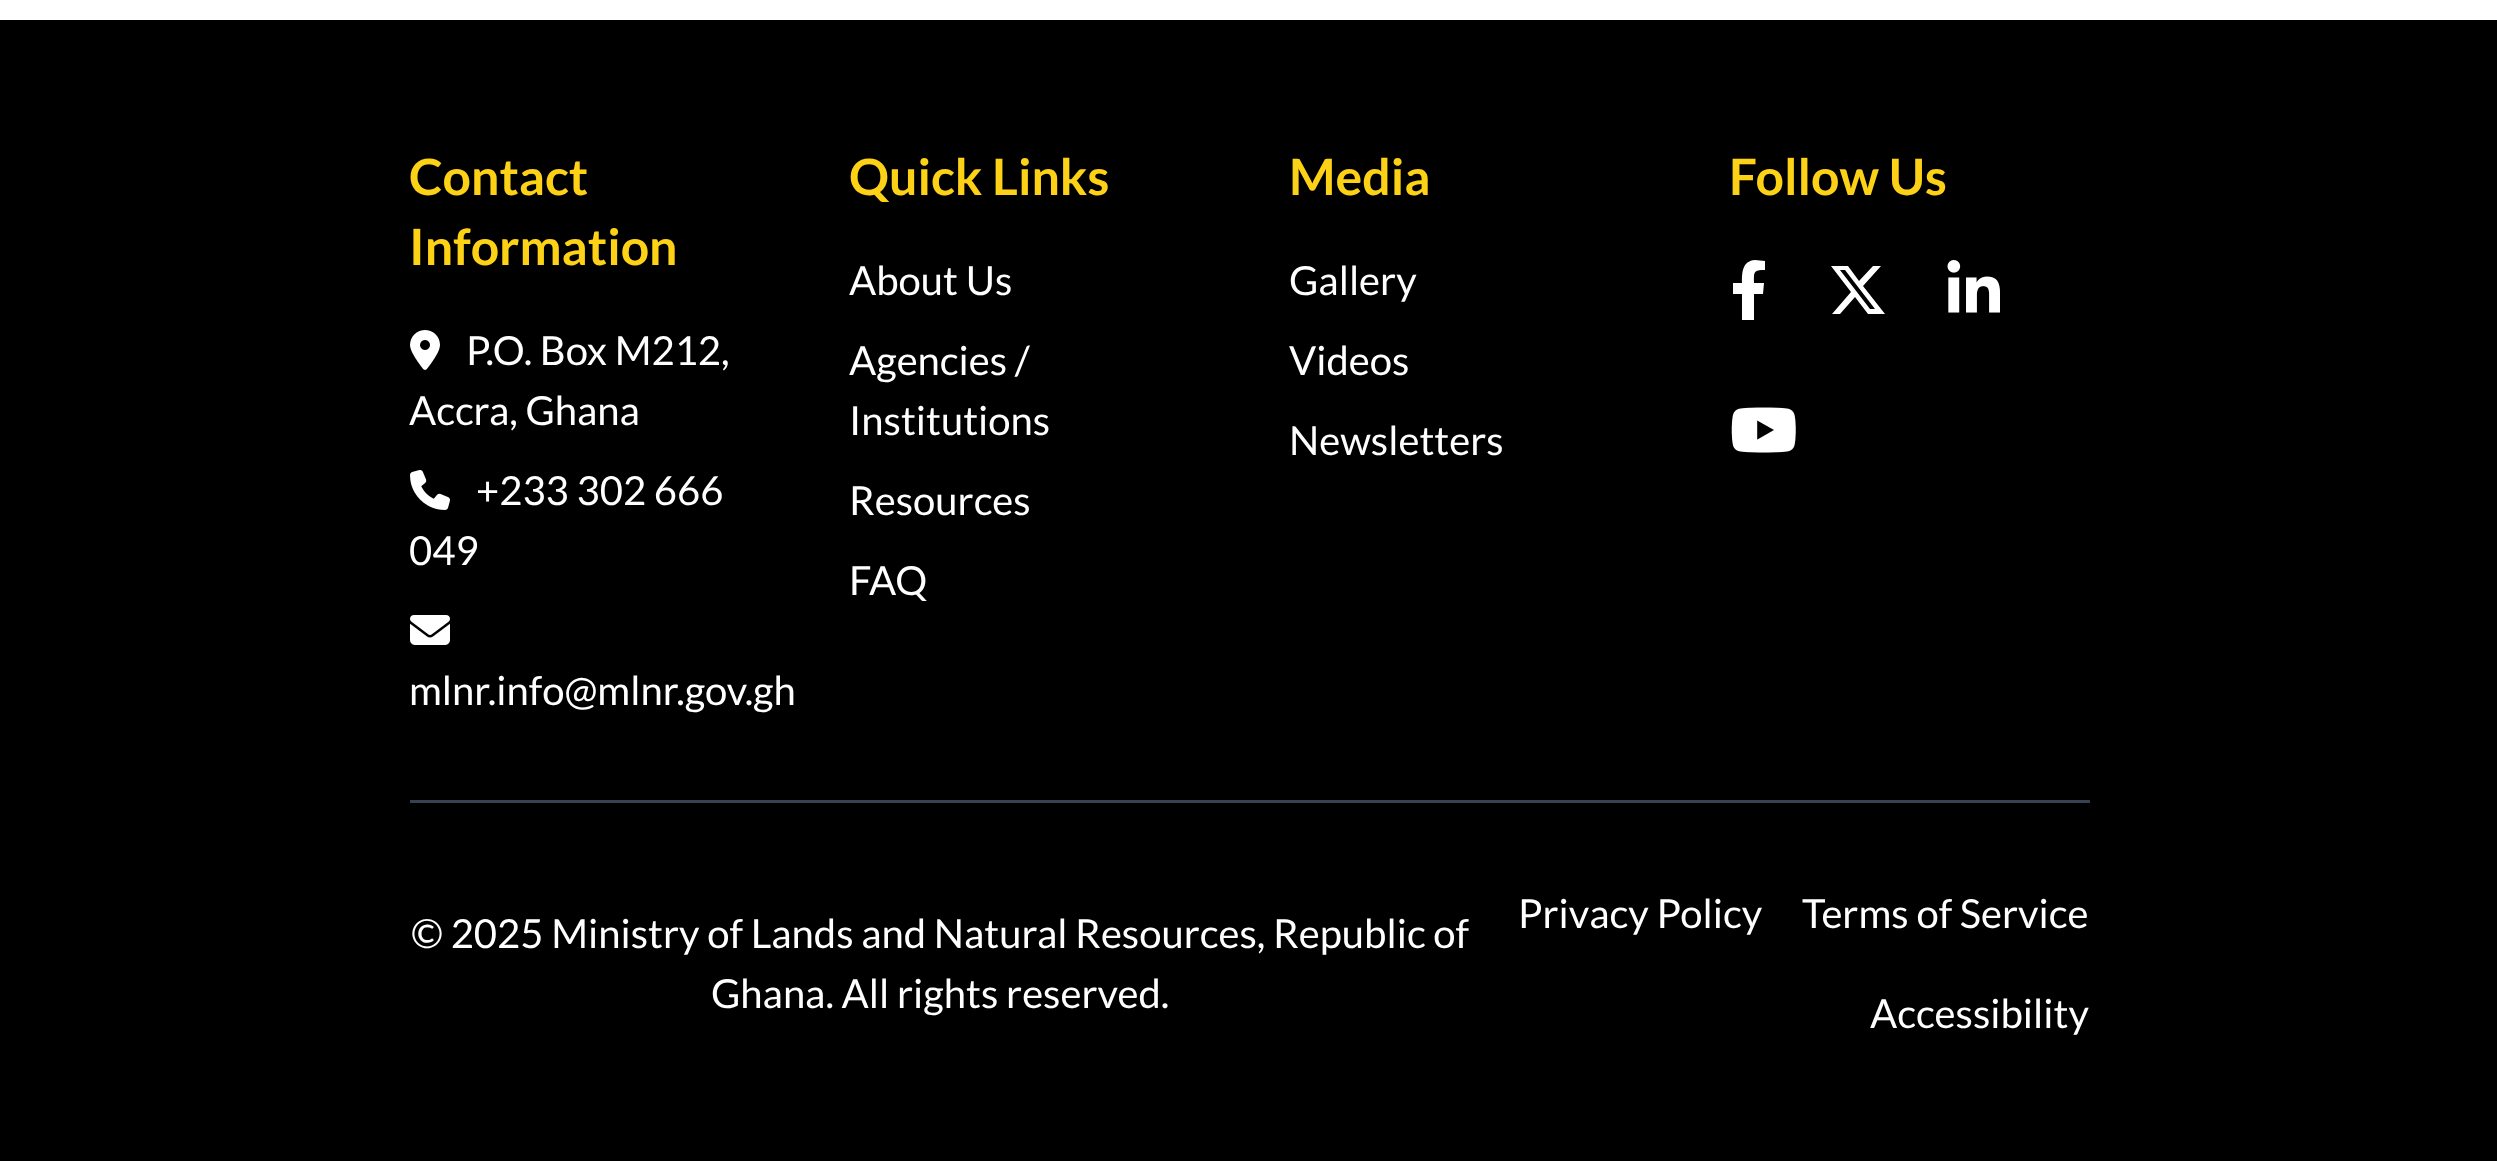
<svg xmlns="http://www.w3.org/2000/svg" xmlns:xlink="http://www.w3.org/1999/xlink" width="2497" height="1161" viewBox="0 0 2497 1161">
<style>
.cls-1{font:bold 50px Lato;fill:#fcd116}
.cls-2{font:40px Lato;fill:#ffffff}
</style>
<rect width="100%" height="100%" fill="#ffffff"/>
<rect fill="#000000" x="0" y="20" width="2497" height="1141"/>
<image xlink:href="image0.png" x="410" y="330" width="30" height="40"/>
<image xlink:href="image1.png" x="410" y="470" width="40" height="40"/>
<image xlink:href="image2.png" x="410" y="615" width="40" height="30"/>
<path fill="#ffffff" d="M1763 294L1764 283H1754C1754 272 1753 270 1765 270V261L1755 260C1742 261 1742 273 1742 283H1733V294H1742V320H1754V294Z"/>
<path fill="#ffffff" d="M1873 266H1881L1863 286L1885 314H1868L1855 297L1840 314H1832L1851 292L1831 266H1848L1859 281ZM1870 309H1875L1845 270H1840Z"/>
<image xlink:href="image3.png" x="1947" y="260" width="53" height="53"/>
<image xlink:href="image4.png" x="1731" y="407" width="65" height="46"/>
<rect fill="#374151" x="410" y="800" width="1680" height="3"/>
<text class="cls-1"><tspan x="409" y="195">Contact</tspan><tspan x="409" y="265">Information</tspan></text>
<text class="cls-2" x="466" y="365">P.O. Box M212,</text>
<text class="cls-2" x="409" y="425">Accra, Ghana</text>
<text class="cls-2" x="476" y="505">+233 302 666</text>
<text class="cls-2" x="409" y="565">049</text>
<text class="cls-2" x="409" y="705">mlnr.info@mlnr.gov.gh</text>
<text class="cls-1" x="849" y="195">Quick Links</text>
<text class="cls-2" x="849" y="295">About Us</text>
<text class="cls-2"><tspan x="849" y="375">Agencies /</tspan><tspan x="849" y="435">Institutions</tspan></text>
<text class="cls-2" x="849" y="515">Resources</text>
<text class="cls-2" x="849" y="595">FAQ</text>
<text class="cls-1" x="1289" y="195">Media</text>
<text class="cls-2" x="1289" y="295">Gallery</text>
<text class="cls-2" x="1289" y="375">Videos</text>
<text class="cls-2" x="1289" y="455">Newsletters</text>
<text class="cls-1" x="1729" y="195">Follow Us</text>
<text class="cls-2" x="411" y="948">© 2025 Ministry of Lands and Natural Resources, Republic of</text>
<text class="cls-2" x="711" y="1008">Ghana. All rights reserved.</text>
<text class="cls-2" x="1518" y="928">Privacy Policy</text>
<text class="cls-2" x="1802" y="928">Terms of Service</text>
<text class="cls-2" x="1870" y="1028">Accessibility</text>
</svg>
